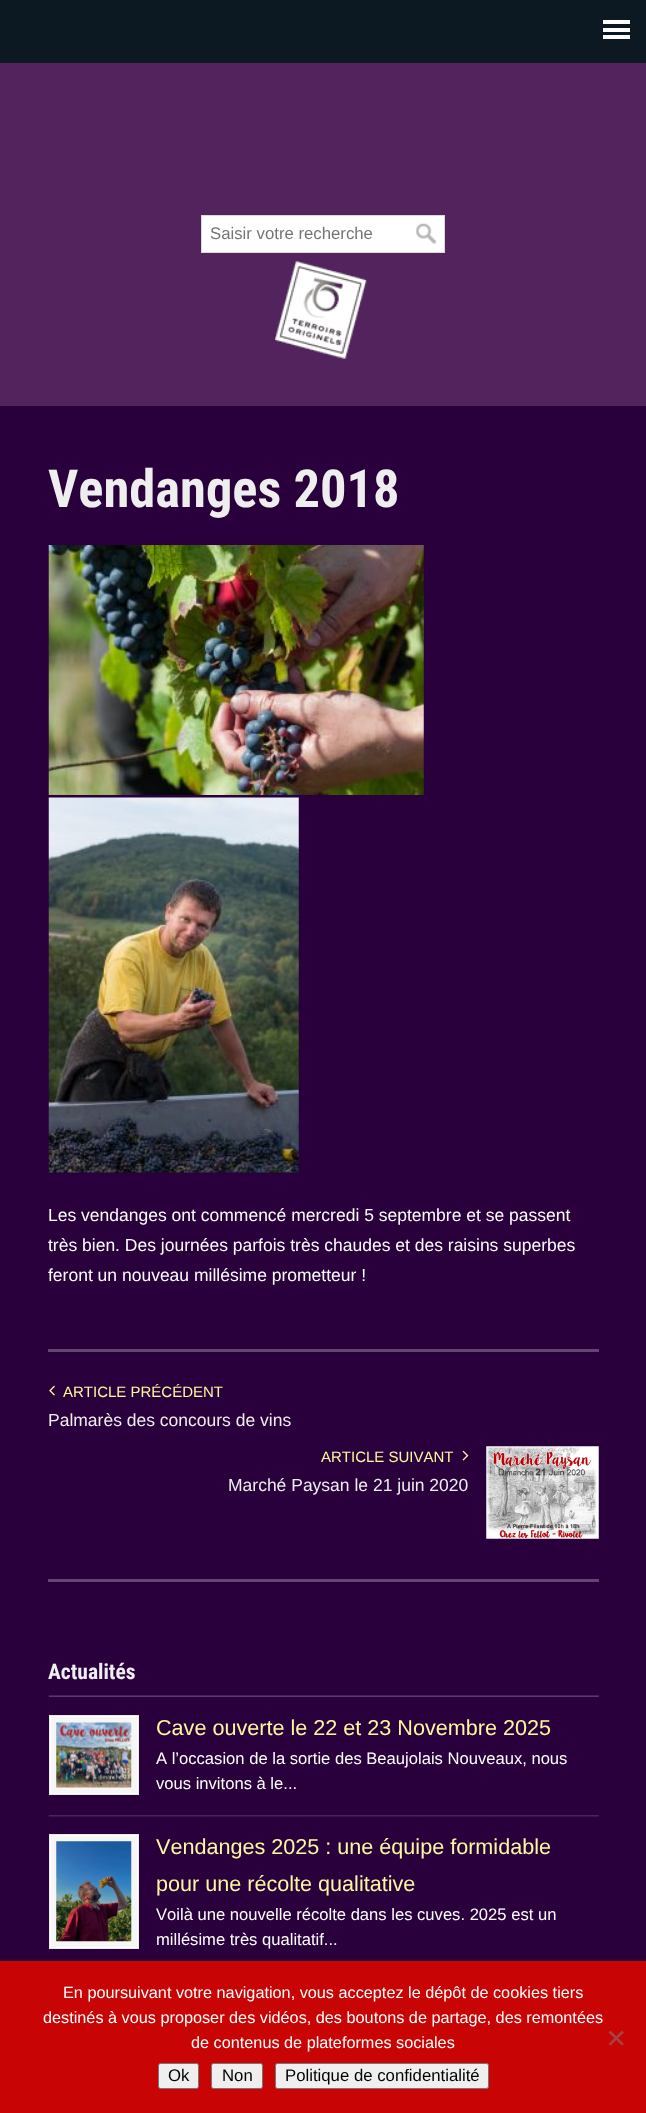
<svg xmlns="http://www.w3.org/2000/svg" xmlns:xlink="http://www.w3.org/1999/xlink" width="646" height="2113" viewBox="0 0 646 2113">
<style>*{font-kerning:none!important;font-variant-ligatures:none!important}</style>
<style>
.cls-1{font:16.75px Liberation Sans;fill:#757575}
.cls-2{font:bold 52.5px Roboto Condensed;fill:#eeeeee}
.cls-3{font:17.5px Liberation Sans;fill:#ffffff}
.cls-4{font:15px Liberation Sans;fill:#fcf7a1}
.cls-5{font:17.5px Liberation Sans;fill:#eeeeee}
.cls-6{font:bold 21.5px Roboto Condensed;fill:#eeeeee}
.cls-7{font:21.6px Liberation Sans;fill:#fcf7a1}
.cls-8{font:16.6px Liberation Sans;fill:#ffffff}
.cls-9{font:16.25px Liberation Sans;fill:#ffffff}
.cls-10{font:16.75px Liberation Sans;fill:#000000}
</style>
<rect width="100%" height="100%" fill="#2a003c"/>
<rect fill="#0c1923" x="0" y="0" width="646" height="63"/>
<rect fill="#ffffff" x="603" y="20" width="27" height="4"/>
<rect fill="#ffffff" x="603" y="28" width="27" height="4"/>
<rect fill="#ffffff" x="603" y="35" width="27" height="4"/>
<rect fill="#52235c" x="0" y="63" width="646" height="343"/>
<rect fill="#ffffff" stroke="#ddd9d9" x="201.5" y="215.5" width="243" height="37"/>
<image xlink:href="image0.png" x="416" y="223" width="21" height="21"/>
<image xlink:href="image1.png" x="275" y="261" width="92" height="98"/>
<image xlink:href="image2.png" x="48" y="545" width="376" height="250"/>
<image xlink:href="image3.png" x="48" y="797" width="251" height="376"/>
<rect fill="#644571" x="48" y="1349" width="551" height="3"/>
<image xlink:href="image4.png" x="49" y="1385" width="6" height="11"/>
<image xlink:href="image5.png" x="462" y="1450" width="7" height="11"/>
<image xlink:href="image6.png" x="486" y="1446" width="113" height="93"/>
<rect fill="#644571" x="48" y="1579" width="551" height="3"/>
<image xlink:href="image7.png" x="48" y="1695" width="551" height="2"/>
<image xlink:href="image8.png" x="48" y="1815" width="551" height="2"/>
<rect fill="#f6f6f6" x="51" y="1717" width="86" height="76"/>
<rect fill="none" stroke="#eaeaea" x="49.5" y="1715.5" width="89" height="79"/>
<rect fill="none" stroke="#ffffff" x="50.5" y="1716.5" width="87" height="77"/>
<image xlink:href="image9.png" x="56" y="1722" width="76" height="66"/>
<rect fill="#f6f6f6" x="51" y="1836" width="86" height="111"/>
<rect fill="none" stroke="#eaeaea" x="49.5" y="1834.5" width="89" height="114"/>
<rect fill="none" stroke="#ffffff" x="50.5" y="1835.5" width="87" height="112"/>
<image xlink:href="image10.png" x="56" y="1841" width="76" height="101"/>
<rect fill="#c90404" x="0" y="1961" width="646" height="152"/>
<path fill="#a54242" d="M622 2030.5L624 2032.5L610.5 2045.5L608.5 2044Z"/>
<path fill="#a54242" d="M608.5 2032.5L610.5 2030.5L624 2044L622 2045.5Z"/>
<rect fill="#efefef" stroke="#767676" x="158.5" y="2063.5" width="40" height="25" rx="2"/>
<rect fill="#efefef" stroke="#767676" x="211.5" y="2063.5" width="51" height="25" rx="2"/>
<rect fill="#efefef" stroke="#767676" x="275.5" y="2063.5" width="213" height="25" rx="2"/>
<text class="cls-1" x="210" y="239">Saisir votre recherche</text>
<text class="cls-2" x="48" y="507">Vendanges 2018</text>
<text class="cls-3"><tspan x="48" y="1221">Les vendanges ont commencé mercredi 5 septembre et se passent</tspan><tspan x="48" y="1251">très bien. Des journées parfois très chaudes et des raisins superbes</tspan><tspan x="48" y="1281">feront un nouveau millésime prometteur !</tspan></text>
<text class="cls-4" x="63" y="1397">ARTICLE PRÉCÉDENT</text>
<text class="cls-5" x="48" y="1426">Palmarès des concours de vins</text>
<text class="cls-4" x="321" y="1462">ARTICLE SUIVANT</text>
<text class="cls-5" x="228" y="1491">Marché Paysan le 21 juin 2020</text>
<text class="cls-6" x="48" y="1679">Actualités</text>
<text class="cls-7" x="156" y="1735">Cave ouverte le 22 et 23 Novembre 2025</text>
<text class="cls-8"><tspan x="156" y="1764">A l’occasion de la sortie des Beaujolais Nouveaux, nous</tspan><tspan x="156" y="1789">vous invitons à le...</tspan></text>
<text class="cls-7"><tspan x="156" y="1854">Vendanges 2025 : une équipe formidable</tspan><tspan x="156" y="1891">pour une récolte qualitative</tspan></text>
<text class="cls-8"><tspan x="156" y="1920">Voilà une nouvelle récolte dans les cuves. 2025 est un</tspan><tspan x="156" y="1945">millésime très qualitatif...</tspan></text>
<text class="cls-9" x="63" y="1998">En poursuivant votre navigation, vous acceptez le dépôt de cookies tiers</text>
<text class="cls-9" x="43" y="2023">destinés à vous proposer des vidéos, des boutons de partage, des remontées</text>
<text class="cls-9" x="191" y="2048">de contenus de plateformes sociales</text>
<text class="cls-10" x="168" y="2081">Ok</text>
<text class="cls-10" x="222" y="2081">Non</text>
<text class="cls-10" x="285" y="2081">Politique de confidentialité</text>
</svg>
